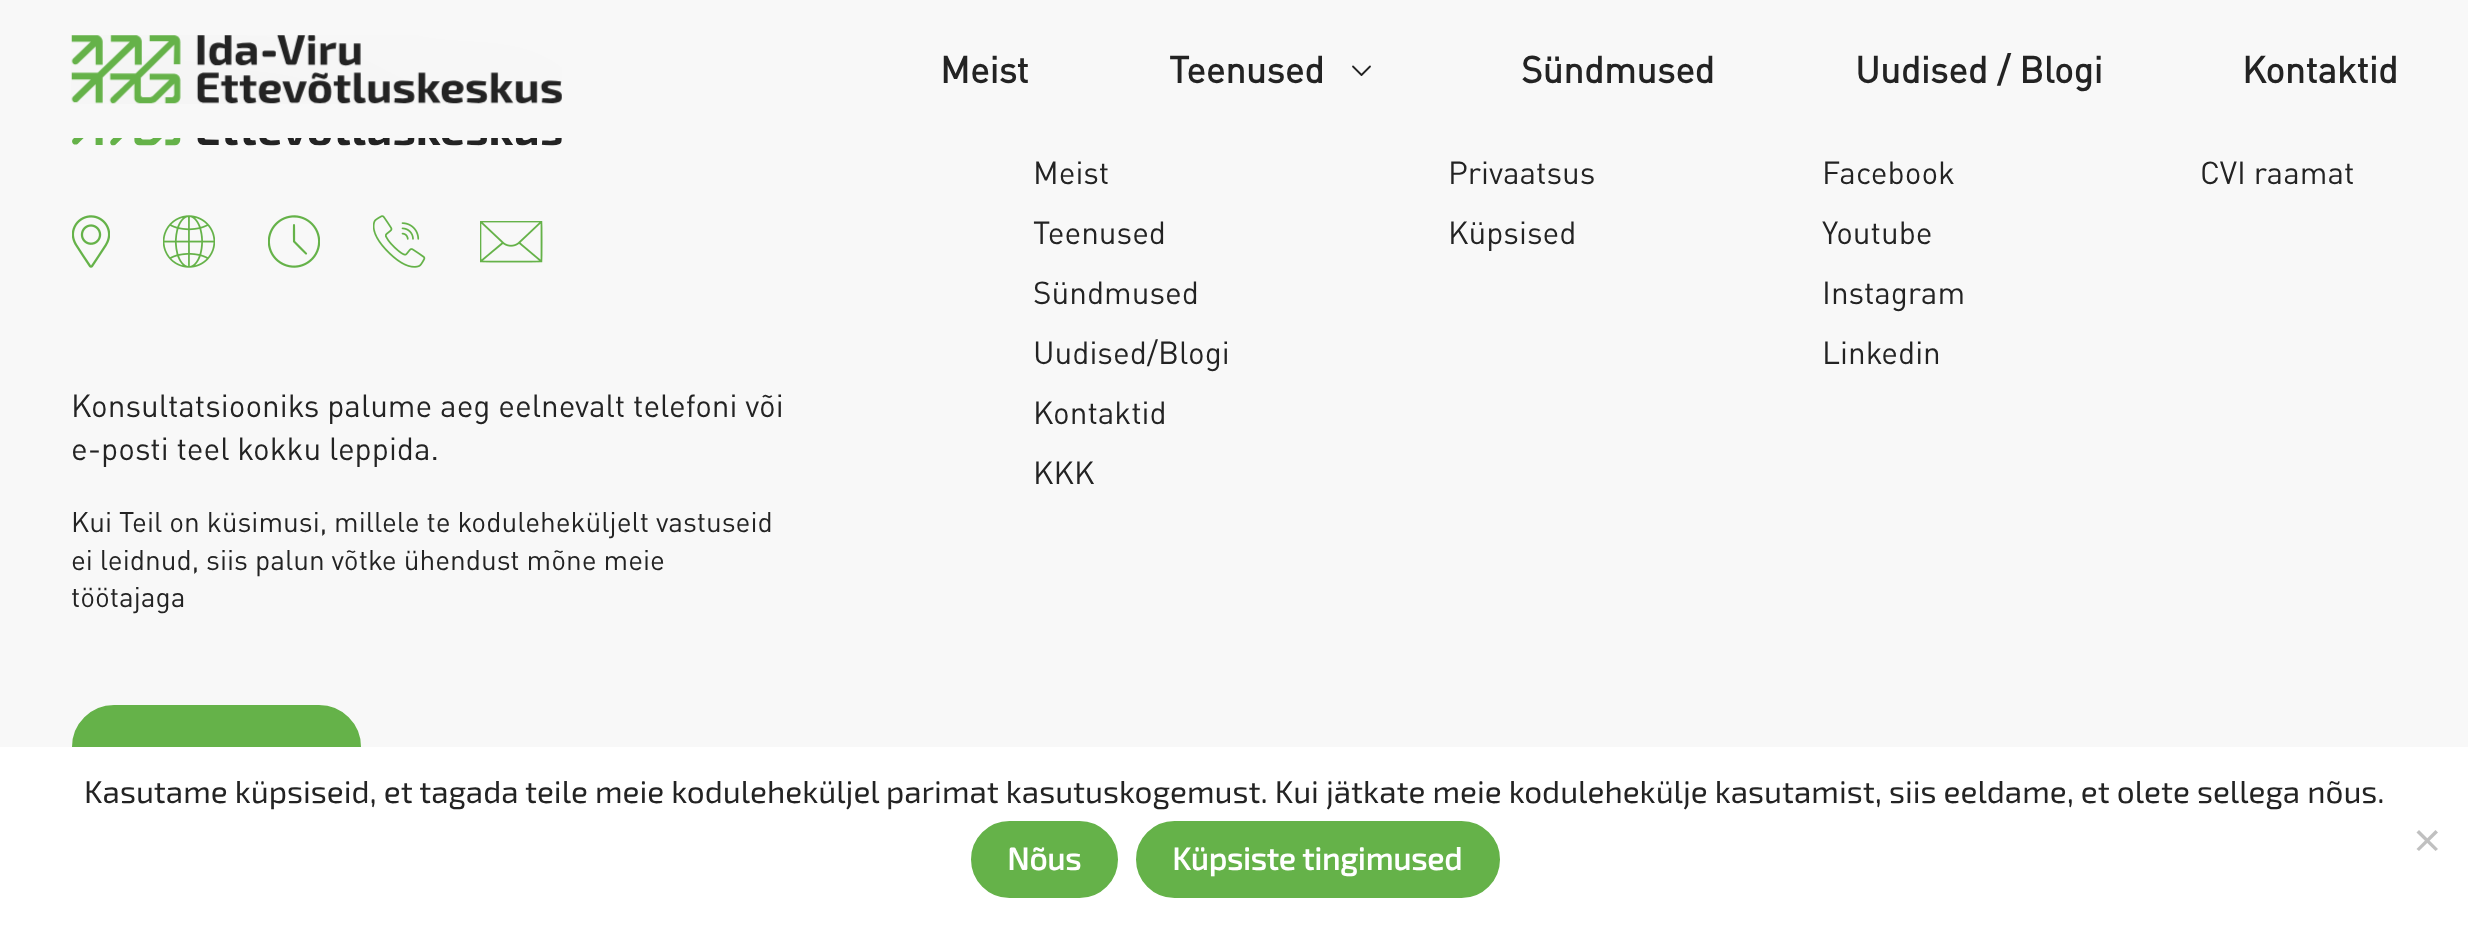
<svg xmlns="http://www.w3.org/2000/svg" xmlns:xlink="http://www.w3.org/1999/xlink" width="2468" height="932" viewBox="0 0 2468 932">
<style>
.cls-1{font:bold 36.75px DIN;fill:#232323}
.cls-2{font:31.5px DIN;fill:#232323}
.cls-3{font:28px DIN;fill:#232323}
.cls-4{font:31.5px 'Exo 2';fill:#232323}
.cls-5{font:bold 31.5px 'Exo 2';fill:#ffffff}
</style>
<rect width="100%" height="100%" fill="#f8f8f8"/>
<image xlink:href="image0.png" x="71" y="35" width="491" height="69"/>
<path fill="none" stroke="#232323" stroke-width="1.8" stroke-linecap="round" stroke-linejoin="round" d="M1353 66.5L1361.5 75L1370 66.5"/>
<image xlink:href="image1.png" x="72" y="138" width="490" height="8"/>
<image xlink:href="image2.png" x="72" y="215" width="38" height="53"/>
<image xlink:href="image3.png" x="163" y="215" width="52" height="53"/>
<image xlink:href="image4.png" x="268" y="215" width="52" height="53"/>
<image xlink:href="image5.png" x="373" y="215" width="53" height="53"/>
<image xlink:href="image6.png" x="480" y="221" width="63" height="42"/>
<rect fill="#65b249" stroke="#65b249" stroke-width="2" x="73" y="706" width="287" height="82" rx="41"/>
<rect fill="#ffffff" x="0" y="747" width="2468" height="185"/>
<path fill="#c0c0c0" d="M2435.5 830L2438 832.5L2419 851L2416.5 849Z"/>
<path fill="#c0c0c0" d="M2416.5 832.5L2419 830L2438 849L2435.5 851Z"/>
<rect fill="#65b249" stroke="#65b249" stroke-width="2" x="972" y="822" width="145" height="75" rx="37.5"/>
<rect fill="#65b249" stroke="#65b249" stroke-width="2" x="1137" y="822" width="362" height="75" rx="37.5"/>
<text class="cls-1" x="940" y="83">Meist</text>
<text class="cls-1" x="1169" y="83">Teenused</text>
<text class="cls-1" x="1521" y="83">Sündmused</text>
<text class="cls-1" x="1855" y="83">Uudised / Blogi</text>
<text class="cls-1" x="2242" y="83">Kontaktid</text>
<text class="cls-2"><tspan x="71" y="417">Konsultatsiooniks palume aeg eelnevalt telefoni või</tspan><tspan x="71" y="460">e-posti teel kokku leppida.</tspan></text>
<text class="cls-3"><tspan x="71" y="532">Kui Teil on küsimusi, millele te koduleheküljelt vastuseid</tspan><tspan x="71" y="570">ei leidnud, siis palun võtke ühendust mõne meie</tspan><tspan x="71" y="607">töötajaga</tspan></text>
<text class="cls-2"><tspan x="1033" y="184">Meist</tspan><tspan x="1033" y="244">Teenused</tspan><tspan x="1033" y="304">Sündmused</tspan><tspan x="1033" y="364">Uudised/Blogi</tspan><tspan x="1033" y="424">Kontaktid</tspan><tspan x="1033" y="484">KKK</tspan></text>
<text class="cls-2"><tspan x="1448" y="184">Privaatsus</tspan><tspan x="1448" y="244">Küpsised</tspan></text>
<text class="cls-2"><tspan x="1822" y="184">Facebook</tspan><tspan x="1822" y="244">Youtube</tspan><tspan x="1822" y="304">Instagram</tspan><tspan x="1822" y="364">Linkedin</tspan></text>
<text class="cls-2" x="2200" y="184">CVI raamat</text>
<text class="cls-4" x="84" y="803">Kasutame küpsiseid, et tagada teile meie koduleheküljel parimat kasutuskogemust. Kui jätkate meie kodulehekülje kasutamist, siis eeldame, et olete sellega nõus.</text>
<text class="cls-5" x="1007" y="870">Nõus</text>
<text class="cls-5" x="1172" y="870">Küpsiste tingimused</text>
</svg>
